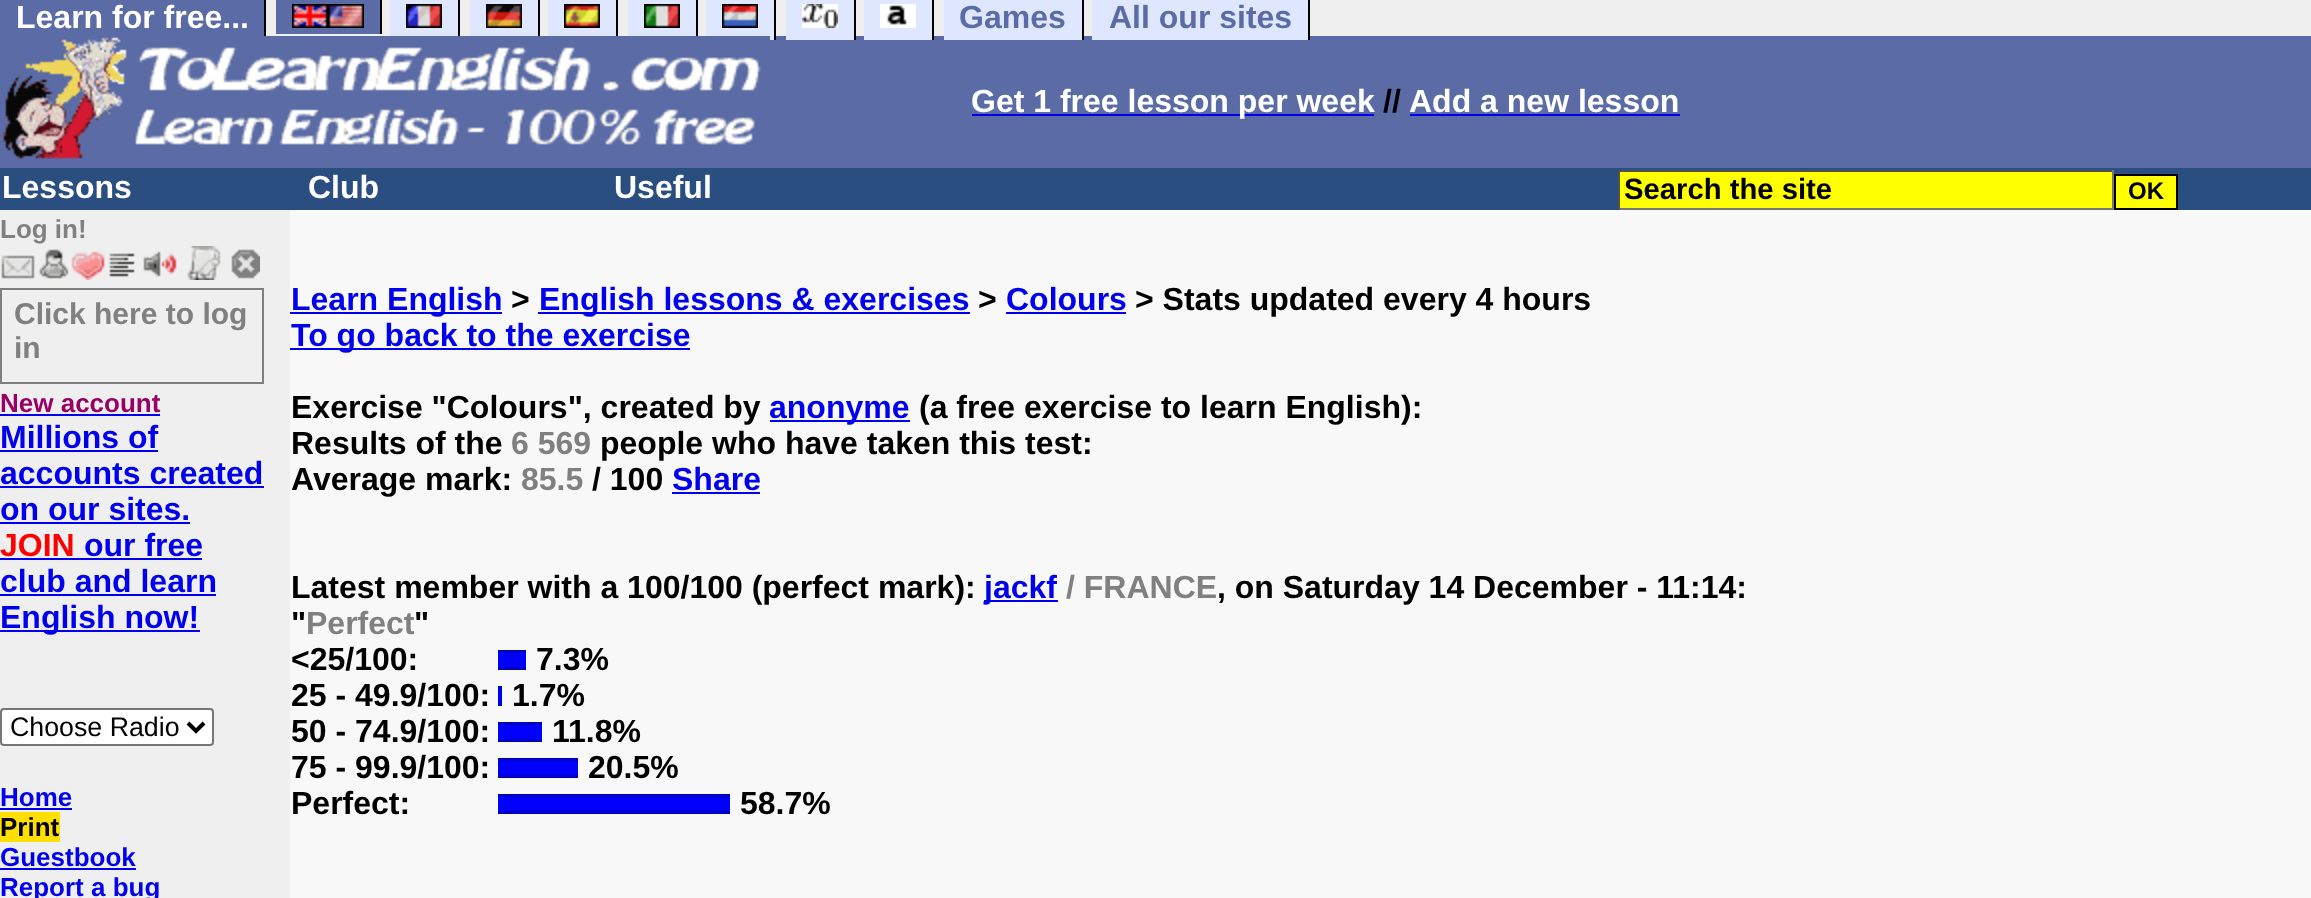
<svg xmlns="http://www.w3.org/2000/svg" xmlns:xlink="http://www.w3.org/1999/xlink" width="2311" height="898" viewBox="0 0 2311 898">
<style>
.cls-1{font:bold 32px Liberation Sans;fill:#ffffff}
.cls-2{font:bold 32px Liberation Sans;fill:#5a6ba5}
.cls-3{font:bold 32px Liberation Sans;fill:#000000}
.cls-4{font:bold 29.25px Liberation Sans;fill:#000000}
.cls-5{font:bold 24px Liberation Sans;fill:#000000}
.cls-6{font:bold 26px Liberation Sans;fill:#808080}
.cls-7{font:bold 30px Liberation Sans;fill:#808080}
.cls-8{font:bold 26px Liberation Sans;fill:#990066}
.cls-9{font:bold 32px Liberation Sans;fill:#0000ee}
.cls-10{font:bold 32px Liberation Sans;fill:#ff0000}
.cls-11{font:26.75px Liberation Sans;fill:#000000}
.cls-12{font:bold 26px Liberation Sans;fill:#0000ee}
.cls-13{font:bold 26px Liberation Sans;fill:#000000}
.cls-14{font:bold 32px Liberation Sans;fill:#808080}
</style>
<rect width="100%" height="100%" fill="#efefef"/>
<rect fill="#5a6ba5" x="0" y="0" width="264" height="36"/>
<rect fill="#5a6ba5" x="0" y="36" width="2311" height="132"/>
<rect fill="#000000" x="264" y="0" width="2" height="40"/>
<rect fill="#5a6ba5" x="276" y="0" width="104" height="34"/>
<rect fill="#000000" x="380" y="0" width="2" height="34"/>
<rect fill="#dfe7ff" x="390" y="0" width="68" height="36"/>
<rect fill="#000000" x="458" y="0" width="2" height="40"/>
<rect fill="#dfe7ff" x="470" y="0" width="68" height="36"/>
<rect fill="#000000" x="538" y="0" width="2" height="40"/>
<rect fill="#dfe7ff" x="548" y="0" width="68" height="36"/>
<rect fill="#000000" x="616" y="0" width="2" height="40"/>
<rect fill="#dfe7ff" x="628" y="0" width="68" height="36"/>
<rect fill="#000000" x="696" y="0" width="2" height="40"/>
<rect fill="#dfe7ff" x="706" y="0" width="68" height="40"/>
<rect fill="#000000" x="774" y="0" width="2" height="40"/>
<rect fill="#dfe7ff" x="786" y="0" width="68" height="40"/>
<rect fill="#000000" x="854" y="0" width="2" height="40"/>
<rect fill="#dfe7ff" x="864" y="0" width="68" height="40"/>
<rect fill="#000000" x="932" y="0" width="2" height="40"/>
<image xlink:href="image0.png" x="292" y="4" width="36" height="24"/>
<image xlink:href="image1.png" x="328" y="4" width="36" height="24"/>
<image xlink:href="image2.png" x="406" y="4" width="36" height="24"/>
<image xlink:href="image3.png" x="486" y="4" width="36" height="24"/>
<image xlink:href="image4.png" x="564" y="4" width="36" height="24"/>
<image xlink:href="image5.png" x="644" y="4" width="36" height="24"/>
<image xlink:href="image6.png" x="722" y="4" width="36" height="24"/>
<image xlink:href="image7.png" x="802" y="4" width="36" height="24"/>
<image xlink:href="image8.png" x="880" y="4" width="36" height="24"/>
<rect fill="#dfe7ff" x="944" y="0" width="138" height="40"/>
<rect fill="#000000" x="1082" y="0" width="2" height="40"/>
<rect fill="#dfe7ff" x="1092" y="0" width="216" height="40"/>
<rect fill="#000000" x="1308" y="0" width="2" height="40"/>
<image xlink:href="image9.png" x="3" y="36" width="767" height="123"/>
<rect fill="#0000ee" x="972" y="114" width="402" height="2"/>
<rect fill="#0000ee" x="1410" y="114" width="270" height="2"/>
<rect fill="#2b4e80" x="0" y="168" width="2311" height="42"/>
<rect fill="#ffff00" x="1620" y="172" width="492" height="36"/>
<rect fill="#4f4f4f" x="1618" y="170" width="496" height="2"/>
<rect fill="#767676" x="2112" y="170" width="2" height="40"/>
<rect fill="#767676" x="1618" y="208" width="496" height="2"/>
<rect fill="#4f4f4f" x="1618" y="170" width="2" height="40"/>
<rect fill="#ffff00" stroke="#000000" stroke-width="2" x="2115" y="175" width="62" height="34"/>
<image xlink:href="image10.png" x="1" y="246" width="259" height="34"/>
<rect fill="none" stroke="#7f7d80" stroke-width="2" x="1" y="289" width="262" height="94"/>
<rect fill="#0000ee" x="0" y="414" width="160" height="2"/>
<rect fill="#0000ee" x="0" y="450" width="158" height="2"/>
<rect fill="#0000ee" x="0" y="486" width="264" height="2"/>
<rect fill="#0000ee" x="0" y="522" width="190" height="2"/>
<rect fill="#0000ee" x="0" y="558" width="202" height="2"/>
<rect fill="#0000ee" x="0" y="594" width="216" height="2"/>
<rect fill="#0000ee" x="0" y="630" width="200" height="2"/>
<rect fill="#ffffff" stroke="#767676" stroke-width="2" x="1" y="709" width="212" height="36" rx="3"/>
<path fill="none" stroke="#000000" stroke-width="4" d="M188 723L196 731L204 723"/>
<rect fill="#0000ee" x="0" y="808" width="72" height="2"/>
<rect fill="#ffde02" x="0" y="812" width="60" height="30"/>
<rect fill="#0000ee" x="0" y="868" width="136" height="2"/>
<rect fill="#f8f8f8" x="290" y="210" width="2021" height="688"/>
<rect fill="#0000ee" x="290" y="312" width="212" height="2"/>
<rect fill="#0000ee" x="538" y="312" width="432" height="2"/>
<rect fill="#0000ee" x="1006" y="312" width="120" height="2"/>
<rect fill="#0000ee" x="290" y="348" width="400" height="2"/>
<rect fill="#0000ee" x="770" y="420" width="140" height="2"/>
<rect fill="#0000ee" x="672" y="492" width="88" height="2"/>
<image xlink:href="image11.png" x="498" y="650" width="28" height="20"/>
<image xlink:href="image12.png" x="498" y="686" width="4" height="20"/>
<image xlink:href="image13.png" x="498" y="722" width="44" height="20"/>
<image xlink:href="image14.png" x="498" y="758" width="80" height="20"/>
<image xlink:href="image15.png" x="498" y="794" width="232" height="20"/>
<rect fill="#0000ee" x="984" y="600" width="74" height="2"/>
<text class="cls-1" x="16" y="28">Learn for free...</text>
<text class="cls-2" x="959" y="28">Games</text>
<text class="cls-2" x="1109" y="28">All our sites</text>
<text class="cls-1" x="971" y="112">Get 1 free lesson per week</text>
<text class="cls-3" x="1383" y="112">//</text>
<text class="cls-1" x="1409" y="112">Add a new lesson</text>
<text class="cls-1" x="2" y="198">Lessons</text>
<text class="cls-1" x="308" y="198">Club</text>
<text class="cls-1" x="614" y="198">Useful</text>
<text class="cls-4" x="1624" y="199">Search the site</text>
<text class="cls-5" x="2128" y="199">OK</text>
<text class="cls-6" x="0" y="238">Log in!</text>
<text class="cls-7"><tspan x="14" y="324">Click here to log</tspan><tspan x="14" y="358">in</tspan></text>
<text class="cls-8" x="0" y="412">New account</text>
<text class="cls-9"><tspan x="0" y="448">Millions of</tspan><tspan x="0" y="484">accounts created</tspan><tspan x="0" y="520">on our sites.</tspan></text>
<text class="cls-10" x="0" y="556">JOIN</text>
<text class="cls-9" x="84" y="556">our free</text>
<text class="cls-9"><tspan x="0" y="592">club and learn</tspan><tspan x="0" y="628">English now!</tspan></text>
<text class="cls-11" x="10" y="736">Choose Radio</text>
<text class="cls-12" x="0" y="806">Home</text>
<text class="cls-13" x="0" y="836">Print</text>
<text class="cls-12"><tspan x="0" y="866">Guestbook</tspan><tspan x="0" y="896">Report a bug</tspan></text>
<text class="cls-9" x="291" y="310">Learn English</text>
<text class="cls-3" x="511" y="310">&gt;</text>
<text class="cls-9" x="539" y="310">English lessons &amp; exercises</text>
<text class="cls-3" x="978" y="310">&gt;</text>
<text class="cls-9" x="1006" y="310">Colours</text>
<text class="cls-3" x="1135" y="310">&gt; Stats updated every 4 hours</text>
<text class="cls-9" x="291" y="346">To go back to the exercise</text>
<text class="cls-3" x="291" y="418">Exercise "Colours", created by</text>
<text class="cls-9" x="769" y="418">anonyme</text>
<text class="cls-3" x="919" y="418">(a free exercise to learn English):</text>
<text class="cls-3" x="600" y="454">people who have taken this test:</text>
<text class="cls-3" x="291" y="490">Average mark:</text>
<text class="cls-3" x="592" y="490">/ 100</text>
<text class="cls-9" x="672" y="490">Share</text>
<text class="cls-3" x="1217" y="598">, on Saturday 14 December - 11:14:</text>
<text class="cls-14" x="306" y="634">Perfect</text>
<text class="cls-3" x="414" y="634">"</text>
<text class="cls-3" x="291" y="670">&lt;25/100:</text>
<text class="cls-3" x="536" y="670">7.3%</text>
<text class="cls-3" x="291" y="706">25 - 49.9/100:</text>
<text class="cls-3" x="512" y="706">1.7%</text>
<text class="cls-3" x="291" y="742">50 - 74.9/100:</text>
<text class="cls-3" x="552" y="742">11.8%</text>
<text class="cls-3" x="291" y="778">75 - 99.9/100:</text>
<text class="cls-3" x="588" y="778">20.5%</text>
<text class="cls-3" x="291" y="814">Perfect:</text>
<text class="cls-3" x="740" y="814">58.7%</text>
<text class="cls-3" x="291" y="634">"</text>
<text class="cls-9" x="984" y="598">jackf</text>
<text class="cls-14" x="1066" y="598">/ FRANCE</text>
<text class="cls-3" x="291" y="598">Latest member with a 100/100 (perfect mark):</text>
<text class="cls-14" x="521" y="490">85.5</text>
<text class="cls-14" x="511" y="454">6 569</text>
<text class="cls-3" x="291" y="454">Results of the</text>
</svg>
